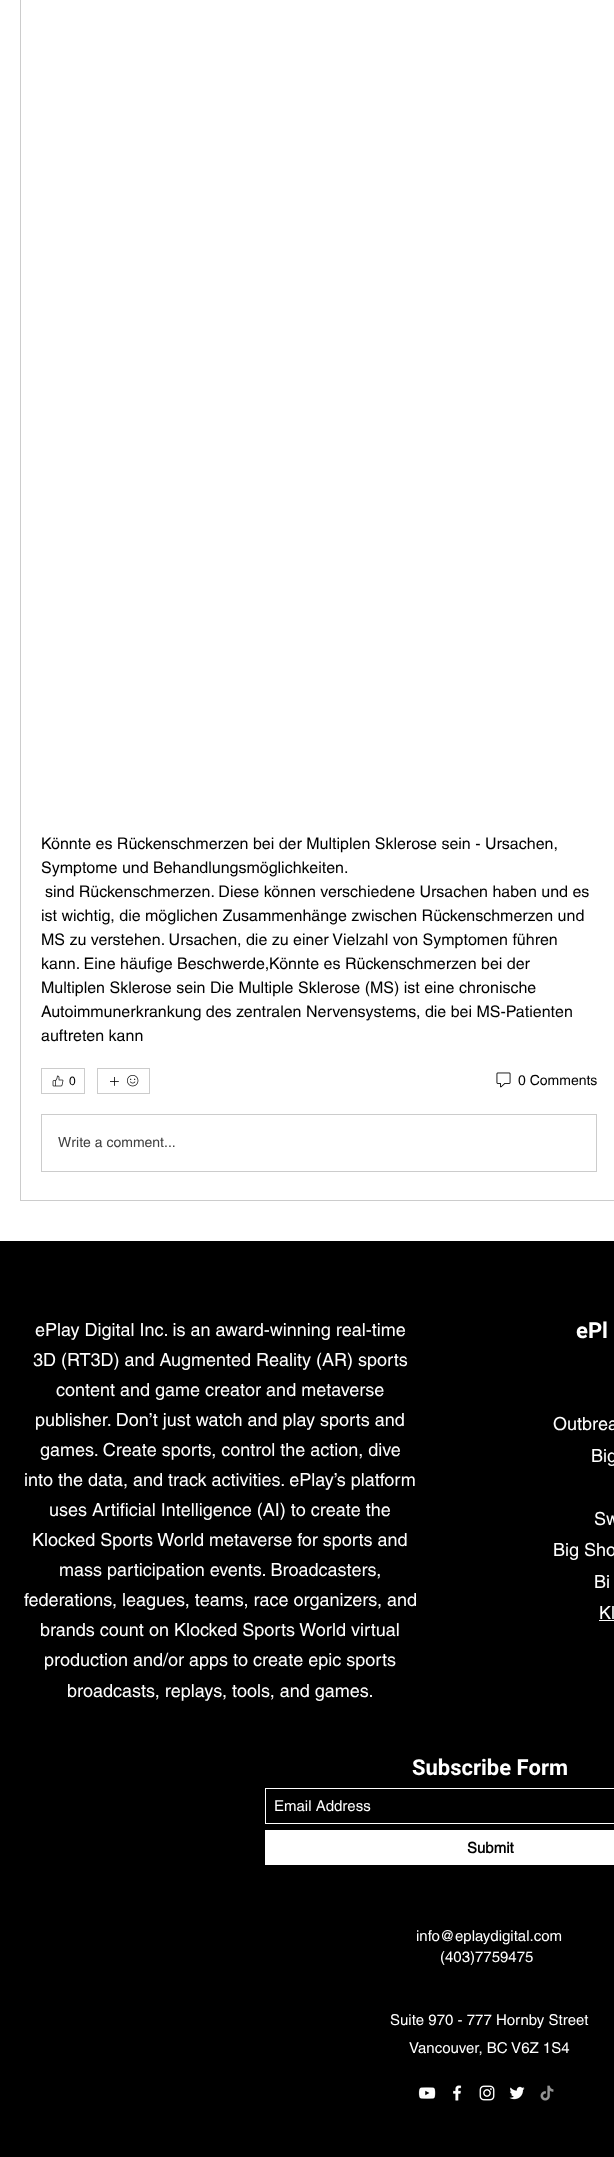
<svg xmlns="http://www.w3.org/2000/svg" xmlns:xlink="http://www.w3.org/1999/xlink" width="614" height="2157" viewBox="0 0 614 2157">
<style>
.cls-1{font:16px helvetica;fill:#000000}
.cls-2{font:12px helvetica;fill:#000000}
.cls-3{font:14px helvetica;fill:#000000}
.cls-4{font:14px helvetica;fill:#404040}
.cls-5{font:18px helvetica;fill:#ffffff}
.cls-6{font:bold 22px Roboto;fill:#ffffff}
.cls-7{font:15px helvetica;fill:#ffffff}
.cls-8{font:bold 15px helvetica;fill:#000000}
</style>
<rect width="100%" height="100%" fill="#ffffff"/>
<rect fill="none" stroke="#cccccc" x="20.5" y="-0.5" width="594" height="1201"/>
<rect fill="none" stroke="#cccccc" x="41.5" y="1068.5" width="43" height="25"/>
<image xlink:href="image0.png" x="52" y="1075" width="12" height="12"/>
<rect fill="none" stroke="#cccccc" x="97.5" y="1068.5" width="52" height="25"/>
<image xlink:href="image1.png" x="110" y="1077" width="9" height="9"/>
<image xlink:href="image2.png" x="127" y="1075" width="12" height="12"/>
<image xlink:href="image3.png" x="496" y="1072" width="15" height="16"/>
<rect fill="none" stroke="#cccccc" x="41.5" y="1114.5" width="555" height="57"/>
<rect fill="#000000" x="0" y="1241" width="614" height="916"/>
<rect fill="#ffffff" x="599" y="1620" width="15" height="1"/>
<rect fill="none" stroke="#ffffff" x="265.5" y="1788.5" width="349" height="35"/>
<rect fill="#ffffff" x="265" y="1830" width="349" height="35"/>
<image xlink:href="image4.png" x="418" y="2087" width="18" height="12"/>
<image xlink:href="image5.png" x="453" y="2085" width="9" height="16"/>
<image xlink:href="image6.png" x="479" y="2085" width="16" height="16"/>
<image xlink:href="image7.png" x="509" y="2086" width="16" height="14"/>
<image xlink:href="image8.png" x="540" y="2085" width="14" height="16"/>
<text class="cls-1"><tspan x="41" y="849">Könnte es Rückenschmerzen bei der Multiplen Sklerose sein - Ursachen,</tspan><tspan x="41" y="873">Symptome und Behandlungsmöglichkeiten.</tspan></text>
<text class="cls-1" x="45" y="897">sind Rückenschmerzen. Diese können verschiedene Ursachen haben und es</text>
<text class="cls-1"><tspan x="41" y="921">ist wichtig, die möglichen Zusammenhänge zwischen Rückenschmerzen und</tspan><tspan x="41" y="945">MS zu verstehen. Ursachen, die zu einer Vielzahl von Symptomen führen</tspan><tspan x="41" y="969">kann. Eine häufige Beschwerde,Könnte es Rückenschmerzen bei der</tspan><tspan x="41" y="993">Multiplen Sklerose sein Die Multiple Sklerose (MS) ist eine chronische</tspan><tspan x="41" y="1017">Autoimmunerkrankung des zentralen Nervensystems, die bei MS-Patienten</tspan><tspan x="41" y="1041">auftreten kann</tspan></text>
<text class="cls-2" x="69" y="1085">0</text>
<text class="cls-3" x="518" y="1085">0 Comments</text>
<text class="cls-4" x="58" y="1147">Write a comment...</text>
<text class="cls-5" x="35" y="1336">ePlay Digital Inc. is an award-winning real-time</text>
<text class="cls-5" x="33" y="1366">3D (RT3D) and Augmented Reality (AR) sports</text>
<text class="cls-5" x="56" y="1396">content and game creator and metaverse</text>
<text class="cls-5" x="35" y="1426">publisher. Don’t just watch and play sports and</text>
<text class="cls-5" x="40" y="1456">games. Create sports, control the action, dive</text>
<text class="cls-5" x="24" y="1486">into the data, and track activities. ePlay’s platform</text>
<text class="cls-5" x="49" y="1516">uses Artificial Intelligence (AI) to create the</text>
<text class="cls-5" x="32" y="1546">Klocked Sports World metaverse for sports and</text>
<text class="cls-5" x="59" y="1576">mass participation events. Broadcasters,</text>
<text class="cls-5" x="24" y="1606">federations, leagues, teams, race organizers, and</text>
<text class="cls-5" x="40" y="1636">brands count on Klocked Sports World virtual</text>
<text class="cls-5" x="44" y="1666">production and/or apps to create epic sports</text>
<text class="cls-5" x="67" y="1697">broadcasts, replays, tools, and games.</text>
<text class="cls-6" x="576" y="1338">ePl</text>
<text class="cls-5" x="553" y="1430">Outbrea</text>
<text class="cls-5" x="591" y="1462">Big</text>
<text class="cls-5" x="594" y="1525">Sw</text>
<text class="cls-5" x="553" y="1556">Big Sho</text>
<text class="cls-5" x="594" y="1588">Bi</text>
<text class="cls-5" x="599" y="1619">Kl</text>
<text class="cls-6" x="412" y="1775">Subscribe Form</text>
<text class="cls-7" x="274" y="1811">Email Address</text>
<text class="cls-8" x="467" y="1853">Submit</text>
<text class="cls-7" x="416" y="1941">info@eplaydigital.com</text>
<text class="cls-7" x="440" y="1962">(403)7759475</text>
<text class="cls-7" x="390" y="2025">Suite 970 - 777 Hornby Street</text>
<text class="cls-7" x="409" y="2053">Vancouver, BC V6Z 1S4</text>
</svg>
